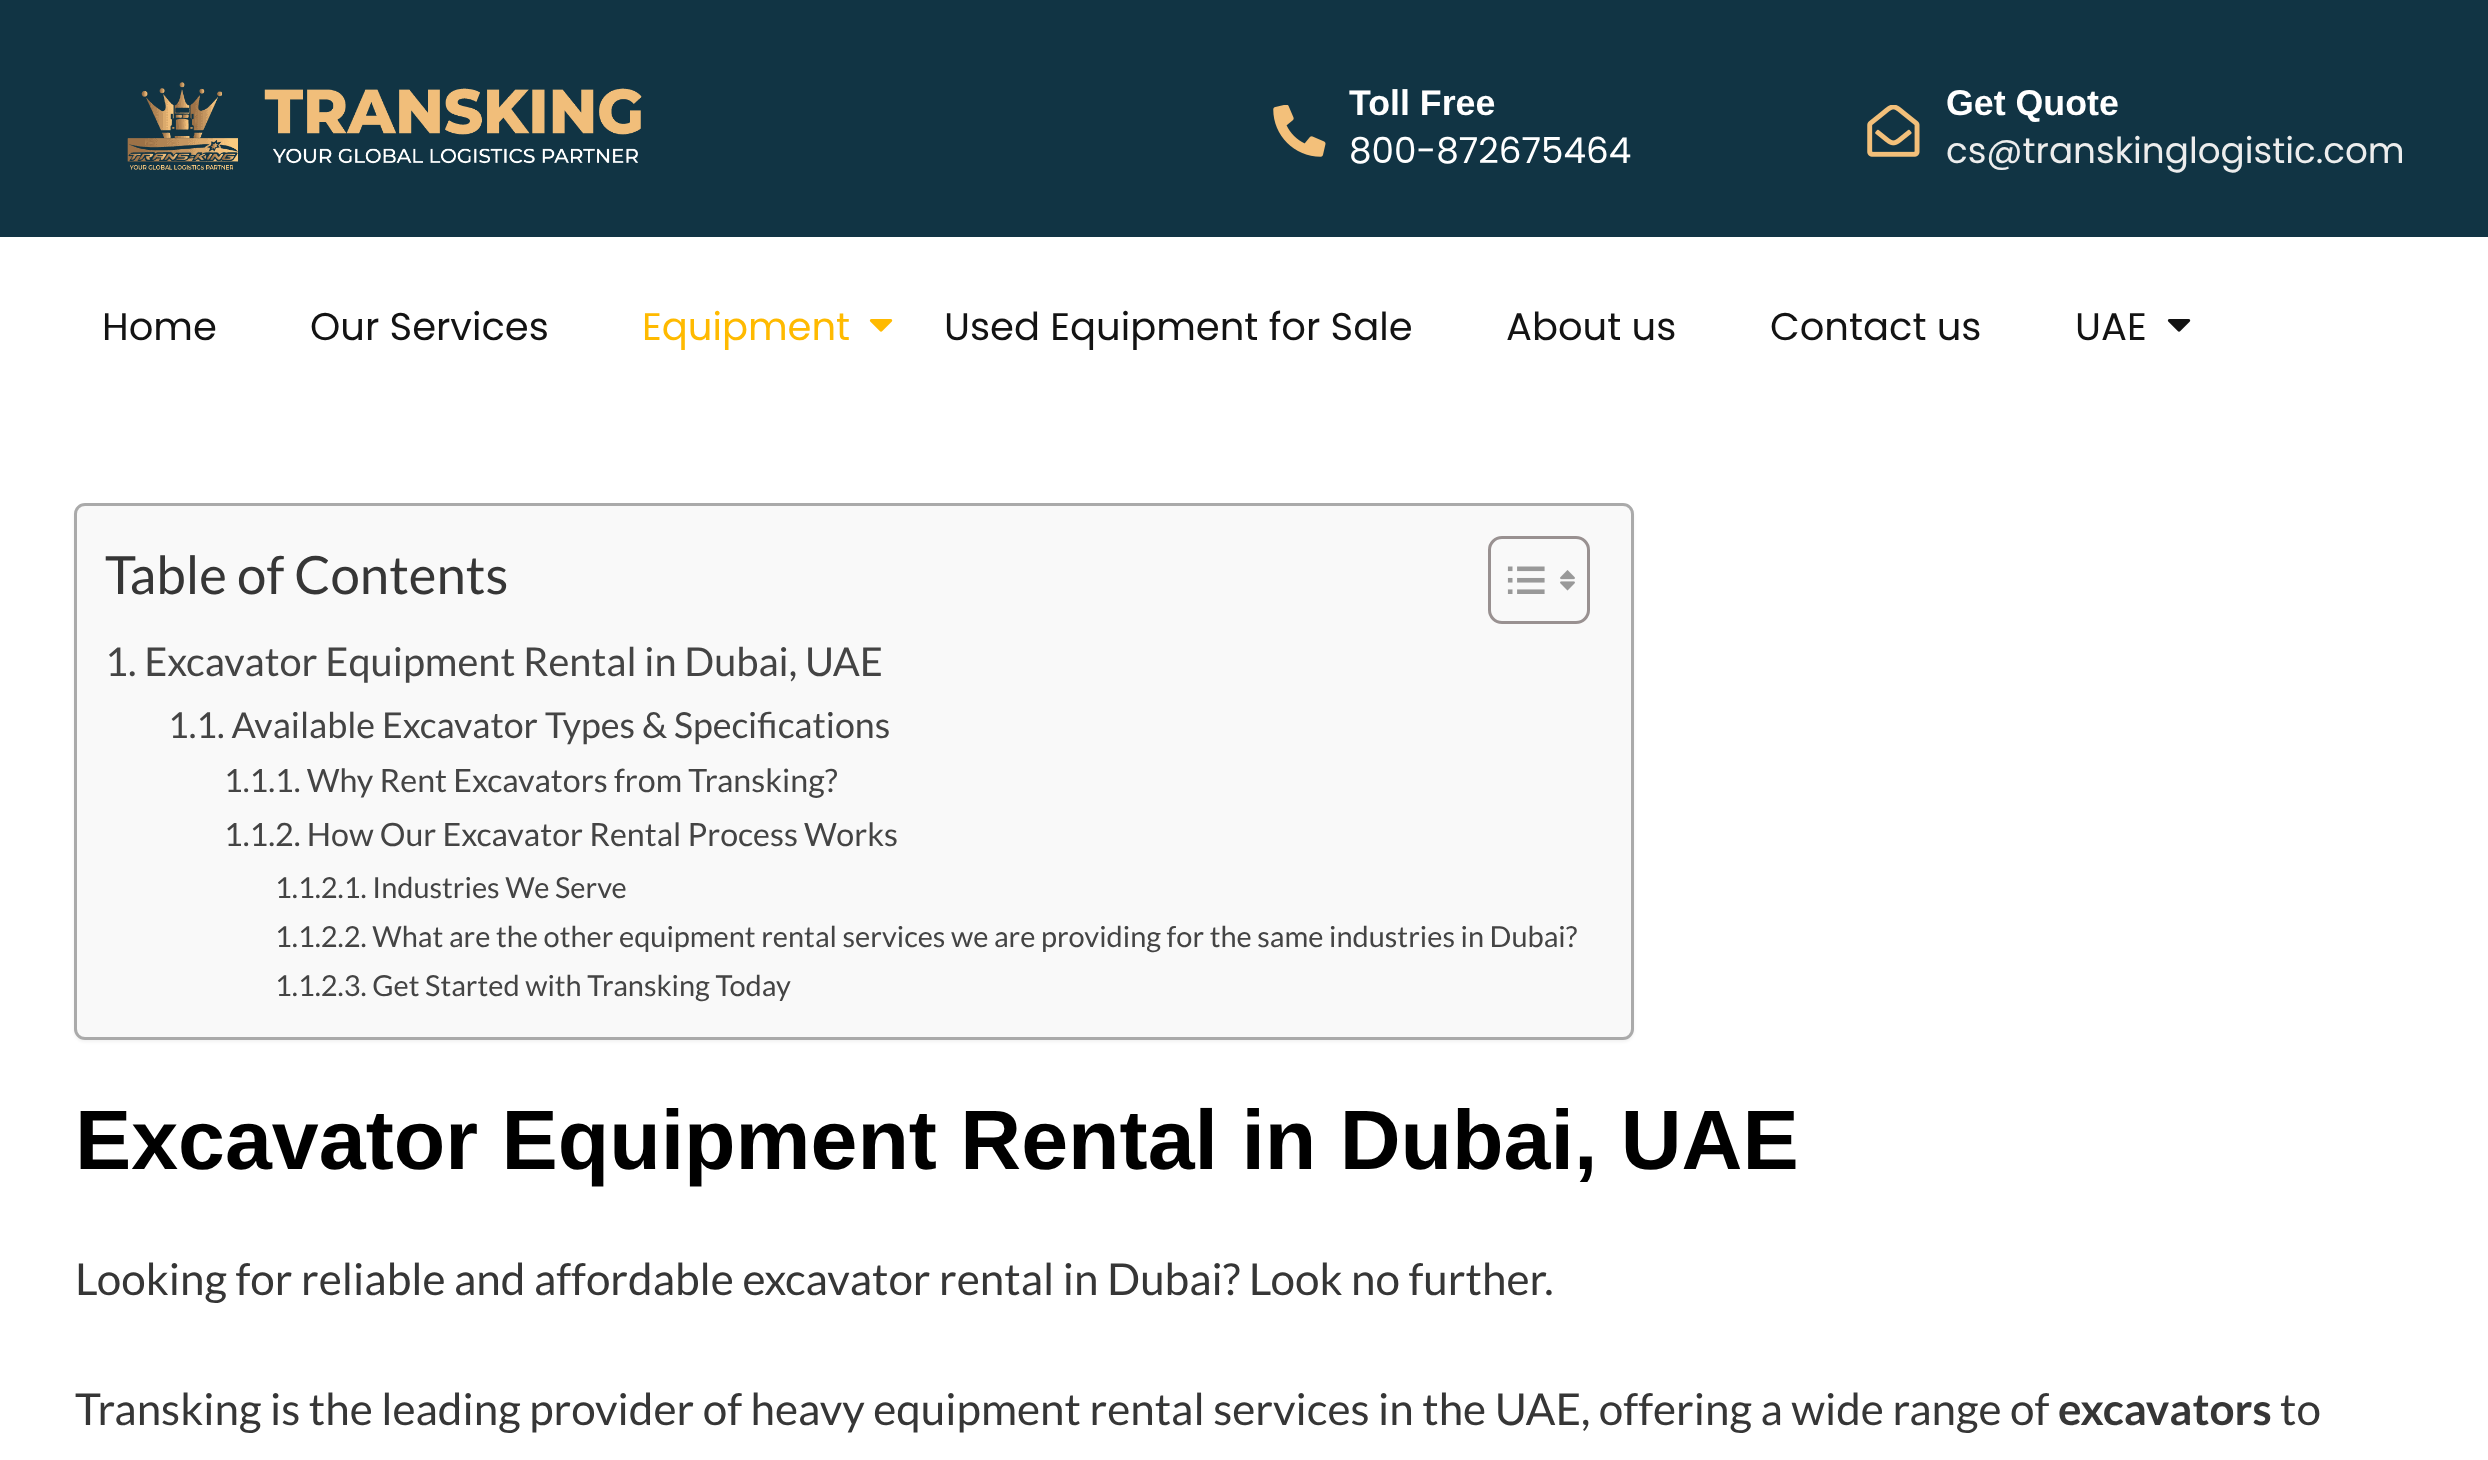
<svg xmlns="http://www.w3.org/2000/svg" xmlns:xlink="http://www.w3.org/1999/xlink" width="2488" height="1460" viewBox="0 0 2488 1460">
<style>
.cls-1{font:bold 35.75px Liberation Sans;fill:#ffffff}
.cls-2{font:35.75px Poppins;fill:#ffffff}
.cls-3{font:35.75px Poppins;fill:#ededed}
.cls-4{font:38.5px Poppins;fill:#131313}
.cls-5{font:38.5px Poppins;fill:#ffba00}
.cls-6{font:52.75px Lato;fill:#363636}
.cls-7{font:39.75px Lato;fill:#444444}
.cls-8{font:35.75px Lato;fill:#444444}
.cls-9{font:32.2px Lato;fill:#444444}
.cls-10{font:28.95px Lato;fill:#444444}
.cls-11{font:bold 84.3px Liberation Sans;fill:#000000}
.cls-12{font:44px Lato;fill:#363636}
.cls-13{font:bold 44px Lato;fill:#363636}
</style>
<rect width="100%" height="100%" fill="#ffffff"/>
<rect fill="#113444" x="0" y="0" width="2488" height="237"/>
<image xlink:href="image0.png" x="127" y="82" width="515" height="88"/>
<image xlink:href="image1.png" x="1273" y="105" width="53" height="52"/>
<image xlink:href="image2.png" x="1867" y="105" width="53" height="52"/>
<image xlink:href="image3.png" x="869" y="319" width="24" height="13"/>
<image xlink:href="image4.png" x="2167" y="319" width="24" height="13"/>
<rect fill="#000000" fill-opacity="0.05" filter="blur(1.5px)" x="74" y="506" width="1560" height="536" rx="11"/>
<rect fill="#f9f9f9" stroke="#aaaaaa" stroke-width="3" x="75.5" y="504.5" width="1557" height="534" rx="9.5"/>
<rect fill="none" stroke="#999191" stroke-width="3" x="1489.5" y="537.5" width="99" height="85" rx="12.5"/>
<image xlink:href="image5.png" x="1507" y="566" width="38" height="28"/>
<image xlink:href="image6.png" x="1560" y="570" width="15" height="21"/>
<text class="cls-1" x="1349" y="115">Toll Free</text>
<text class="cls-2" x="1349" y="163">800-872675464</text>
<text class="cls-1" x="1946" y="115">Get Quote</text>
<text class="cls-3" x="1946" y="163">cs@transkinglogistic.com</text>
<text class="cls-4" x="102" y="340">Home</text>
<text class="cls-4" x="310" y="340">Our Services</text>
<text class="cls-5" x="642" y="340">Equipment</text>
<text class="cls-4" x="944" y="340">Used Equipment for Sale</text>
<text class="cls-4" x="1506" y="340">About us</text>
<text class="cls-4" x="1770" y="340">Contact us</text>
<text class="cls-4" x="2075" y="340">UAE</text>
<text class="cls-6" x="105" y="594">Table of Contents</text>
<text class="cls-7" x="105" y="676">1. Excavator Equipment Rental in Dubai, UAE</text>
<text class="cls-8" x="168" y="738">1.1. Available Excavator Types &amp; Specifications</text>
<text class="cls-9"><tspan x="224" y="792">1.1.1. Why Rent Excavators from Transking?</tspan><tspan x="224" y="846">1.1.2. How Our Excavator Rental Process Works</tspan></text>
<text class="cls-10"><tspan x="275" y="898">1.1.2.1. Industries We Serve</tspan><tspan x="275" y="947">1.1.2.2. What are the other equipment rental services we are providing for the same industries in Dubai?</tspan><tspan x="275" y="996">1.1.2.3. Get Started with Transking Today</tspan></text>
<text class="cls-11" x="75" y="1169">Excavator Equipment Rental in Dubai, UAE</text>
<text class="cls-12" x="75" y="1295">Looking for reliable and affordable excavator rental in Dubai? Look no further.</text>
<text class="cls-12" x="75" y="1425">Transking is the leading provider of heavy equipment rental services in the UAE, offering a wide range of</text>
<text class="cls-13" x="2058" y="1425">excavators</text>
<text class="cls-12" x="2280" y="1425">to</text>
</svg>
